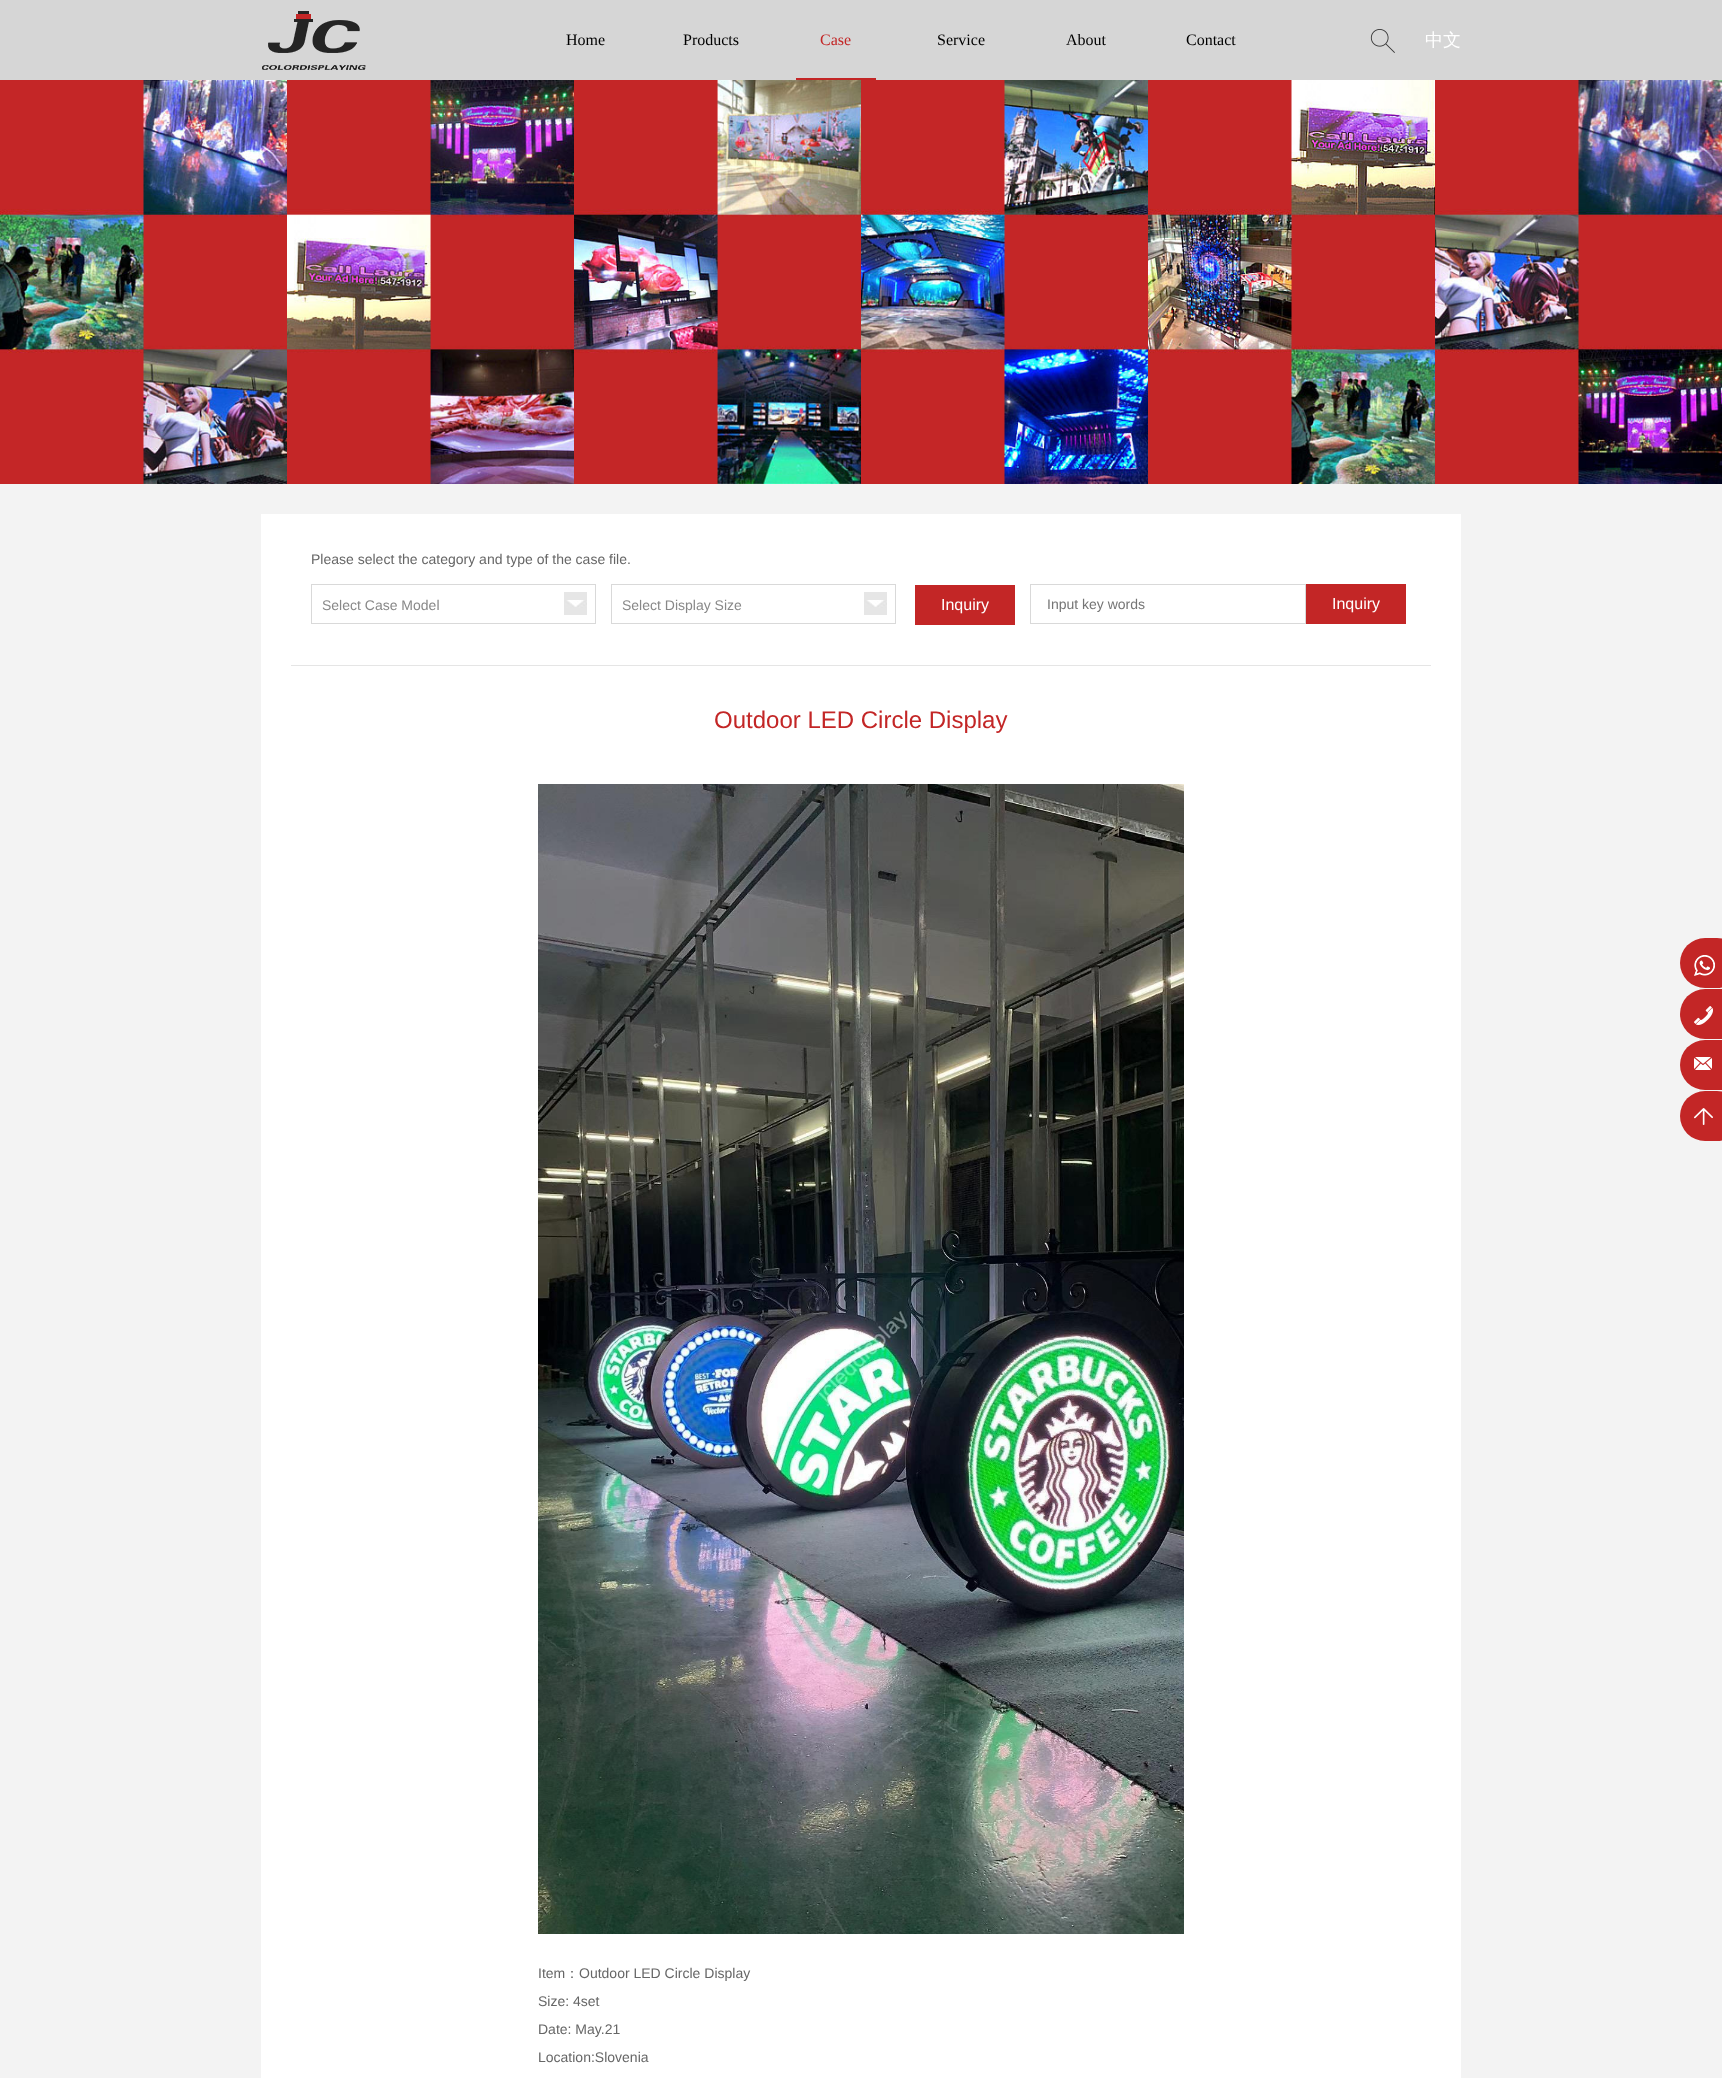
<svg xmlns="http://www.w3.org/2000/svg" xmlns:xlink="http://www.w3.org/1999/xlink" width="1722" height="2078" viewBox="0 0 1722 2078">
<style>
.cls-1{font:16px Liberation Serif;fill:#000000}
.cls-2{font:16px Liberation Serif;fill:#c32626}
.cls-3{font:500 18px WenQuanYi Zen Hei;fill:#ffffff}
.cls-4{font:14px Liberation Sans;fill:#666666}
.cls-5{font:14px Liberation Sans;fill:#888888}
.cls-6{font:16px Liberation Sans;fill:#ffffff}
.cls-7{font:14px Liberation Sans;fill:#757575}
.cls-8{font:24px Liberation Sans;fill:#c32626}
.cls-9{font:500 14px WenQuanYi Zen Hei;fill:#666666}
</style>
<rect width="100%" height="100%" fill="#ffffff"/>
<rect fill="#d6d6d6" x="0" y="0" width="1722" height="80"/>
<image xlink:href="image0.png" x="262" y="11" width="104" height="59"/>
<rect fill="#c32626" x="796" y="78" width="80" height="2"/>
<image xlink:href="image1.png" x="1370" y="29" width="25" height="24"/>
<image xlink:href="image2.png" x="0" y="80" width="1722" height="404"/>
<rect fill="#f3f3f3" x="0" y="484" width="1722" height="1594"/>
<rect fill="#ffffff" x="261" y="514" width="1200" height="1564"/>
<image xlink:href="image3.png" x="564" y="592" width="23" height="23"/>
<rect fill="none" stroke="#d9d9d9" x="311.5" y="584.5" width="284" height="39"/>
<image xlink:href="image3.png" x="864" y="592" width="23" height="23"/>
<rect fill="none" stroke="#d9d9d9" x="611.5" y="584.5" width="284" height="39"/>
<rect fill="#c32626" x="915" y="585" width="100" height="40"/>
<rect fill="none" stroke="#d9d9d9" x="1030.5" y="584.5" width="275" height="39"/>
<rect fill="#c32626" x="1306" y="584" width="100" height="40"/>
<rect fill="#e5e5e5" x="291" y="665" width="1140" height="1"/>
<image xlink:href="image4.png" x="538" y="784" width="646" height="1150"/>
<rect fill="#c32626" x="1680" y="938" width="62" height="50" rx="25"/>
<image xlink:href="image5.png" x="1694" y="955" width="21" height="21"/>
<rect fill="#c32626" x="1680" y="989" width="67" height="50" rx="25"/>
<image xlink:href="image6.png" x="1694" y="1006" width="19" height="19"/>
<rect fill="#c32626" x="1680" y="1040" width="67" height="50" rx="25"/>
<image xlink:href="image7.png" x="1694" y="1057" width="18" height="13"/>
<rect fill="#c32626" x="1680" y="1091" width="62" height="50" rx="25"/>
<image xlink:href="image8.png" x="1694" y="1108" width="19" height="17"/>
<text class="cls-1" x="566" y="45">Home</text>
<text class="cls-1" x="683" y="45">Products</text>
<text class="cls-2" x="820" y="45">Case</text>
<text class="cls-1" x="937" y="45">Service</text>
<text class="cls-1" x="1066" y="45">About</text>
<text class="cls-1" x="1186" y="45">Contact</text>
<text class="cls-3" x="1425" y="46">中文</text>
<text class="cls-4" x="311" y="564">Please select the category and type of the case file.</text>
<text class="cls-5" x="322" y="610">Select Case Model</text>
<text class="cls-5" x="622" y="610">Select Display Size</text>
<text class="cls-6" x="941" y="610">Inquiry</text>
<text class="cls-7" x="1047" y="609">Input key words</text>
<text class="cls-6" x="1332" y="609">Inquiry</text>
<text class="cls-8" x="714" y="728">Outdoor LED Circle Display</text>
<text class="cls-4" x="538" y="1978">Item</text>
<text class="cls-9" x="565" y="1978">：</text>
<text class="cls-4" x="579" y="1978">Outdoor LED Circle Display</text>
<text class="cls-4" x="538" y="2006">Size: 4set</text>
<text class="cls-4" x="538" y="2034">Date: May.21</text>
<text class="cls-4" x="538" y="2062">Location:Slovenia</text>
</svg>
